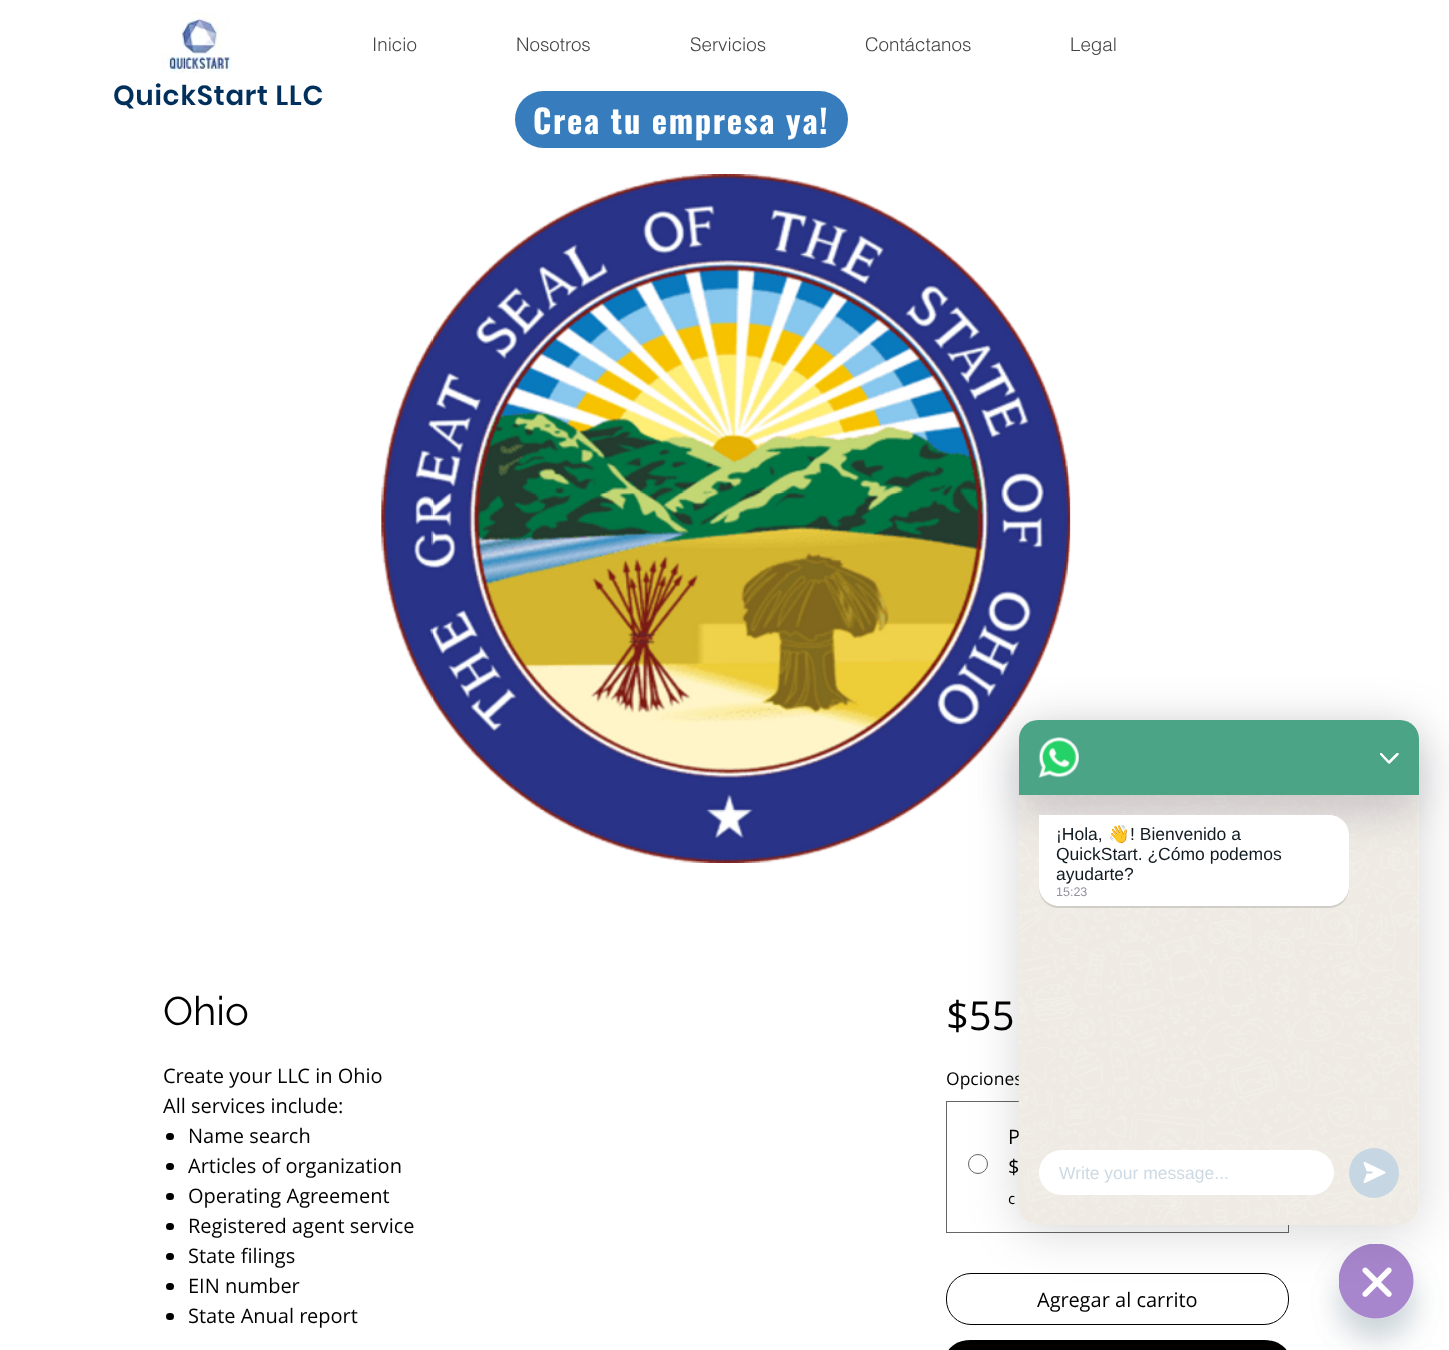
<svg xmlns="http://www.w3.org/2000/svg" xmlns:xlink="http://www.w3.org/1999/xlink" width="1449" height="1350" viewBox="0 0 1449 1350">
<style>
.cls-1{font:300 18.75px helvetica;fill:#444444}
.cls-2{font:600 27.5px Poppins;letter-spacing:0.8px;fill:#00305b}
.cls-3{font:bold 32.5px Oswald;letter-spacing:1.6px;fill:#ffffff}
.cls-4{font:40px Raleway;fill:#000000}
.cls-5{font:20px Open Sans;fill:#000000}
.cls-6{font:40px Open Sans;fill:#000000}
.cls-7{font:17.5px Open Sans;fill:#000000}
.cls-8{font:15px Open Sans;fill:#000000}
.cls-9{font:17.5px Liberation Sans;fill:#111b21}
.cls-10{font:17.5px Noto Color Emoji;fill:#111b21}
.cls-11{font:12.5px Liberation Sans;fill:#93939d}
.cls-12{font:17.5px Liberation Sans;fill:#cedae3}
</style>
<defs>
<clipPath id="clip1"><path d="M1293 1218H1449V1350H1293ZM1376.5 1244C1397 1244 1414 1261 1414 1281.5C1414 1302 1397 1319 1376.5 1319C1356 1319 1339 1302 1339 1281.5C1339 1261 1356 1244 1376.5 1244Z" clip-rule="evenodd"/></clipPath>
<clipPath id="clip2"><rect x="1380" y="753" width="19" height="11"/></clipPath>
</defs>
<rect width="100%" height="100%" fill="#ffffff"/>
<image xlink:href="image0.png" x="161" y="12" width="71" height="61"/>
<rect fill="#377dbd" x="515" y="91" width="333" height="57" rx="28.5"/>
<image xlink:href="image1.png" x="381" y="174" width="690" height="689"/>
<rect fill="#000000" x="166" y="1133" width="8" height="7" rx="3.5"/>
<rect fill="#000000" x="166" y="1163" width="8" height="7" rx="3.5"/>
<rect fill="#000000" x="166" y="1193" width="8" height="7" rx="3.5"/>
<rect fill="#000000" x="166" y="1223" width="8" height="7" rx="3.5"/>
<rect fill="#000000" x="166" y="1253" width="8" height="7" rx="3.5"/>
<rect fill="#000000" x="166" y="1283" width="8" height="7" rx="3.5"/>
<rect fill="#000000" x="166" y="1313" width="8" height="7" rx="3.5"/>
<rect fill="none" stroke="#666666" x="946.5" y="1101.5" width="342" height="131"/>
<circle fill="none" stroke="#666666" cx="978" cy="1164" r="9.5"/>
<rect fill="none" stroke="#000000" x="946.5" y="1273.5" width="342" height="51" rx="24.5"/>
<rect fill="#000000" x="946" y="1340" width="343" height="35" rx="25"/>
<rect fill="#49687e" fill-opacity="0.16" filter="blur(15px)" x="1339" y="1264" width="75" height="75" rx="37.5"/>
<image xlink:href="image5.png" x="1339" y="1244" width="75" height="75"/>
<rect fill="#000000" fill-opacity="0.16" filter="blur(25px)" x="1019" y="726" width="400" height="505" rx="19"/>
<g clip-path="url(#clip1)">
<rect fill="#49687e" fill-opacity="0.16" filter="blur(15px)" x="1339" y="1264" width="75" height="75" rx="37.5"/>
</g>
<text class="cls-1" x="372" y="51">Inicio</text>
<text class="cls-1" x="516" y="51">Nosotros</text>
<text class="cls-1" x="690" y="51">Servicios</text>
<text class="cls-1" x="865" y="51">Contáctanos</text>
<text class="cls-1" x="1070" y="51">Legal</text>
<text class="cls-2" x="113" y="105">QuickStart LLC</text>
<text class="cls-3" x="533" y="134">Crea tu empresa ya!</text>
<text class="cls-4" x="163" y="1025">Ohio</text>
<text class="cls-5"><tspan x="163" y="1083">Create your LLC in Ohio</tspan><tspan x="163" y="1113">All services include:</tspan></text>
<text class="cls-5"><tspan x="188" y="1143">Name search</tspan><tspan x="188" y="1173">Articles of organization</tspan><tspan x="188" y="1203">Operating Agreement</tspan><tspan x="188" y="1233">Registered agent service</tspan><tspan x="188" y="1263">State filings</tspan><tspan x="188" y="1293">EIN number</tspan><tspan x="188" y="1323">State Anual report</tspan></text>
<text class="cls-6" x="946" y="1030">$55</text>
<text class="cls-7" x="946" y="1085">Opciones</text>
<text class="cls-5"><tspan x="1008" y="1144">P</tspan><tspan x="1008" y="1174">$</tspan></text>
<text class="cls-8" x="1008" y="1204">c</text>
<text class="cls-5" x="1037" y="1307">Agregar al carrito</text>
<rect fill="#ffffff" x="1019" y="720" width="400" height="505" rx="19"/>
<image xlink:href="image3.png" x="1018" y="720" width="401" height="505"/>
<rect fill="#1a0e35" fill-opacity="0.16" filter="blur(20px)" x="1019" y="740" width="400" height="75" rx="19"/>
<path fill="#4aa485" d="M1038 720H1400C1410.5 720 1419 728.5 1419 739V795H1019V739C1019 728.5 1027.5 720 1038 720Z"/>
<g clip-path="url(#clip2)">
<path fill="none" stroke="#ffffff" stroke-width="2.5" stroke-linecap="round" stroke-linejoin="round" d="M1381 754L1389 762.5L1397.5 754"/>
</g>
<image xlink:href="image2.png" x="1038" y="737" width="41" height="41"/>
<rect fill="#000000" fill-opacity="0.13" filter="blur(0.5px)" x="1039" y="816" width="310" height="92" rx="20"/>
<path fill="#ffffff" d="M1039 815H1329C1340 815 1349 824 1349 835V886C1349 897 1340 906 1329 906H1059C1048 906 1039 897 1039 886Z"/>
<text class="cls-9" x="1056" y="840">¡Hola,</text>
<text class="cls-10" x="1108" y="840">👋</text>
<text class="cls-9" x="1130" y="840">! Bienvenido a</text>
<text class="cls-9"><tspan x="1056" y="860">QuickStart. ¿Cómo podemos</tspan><tspan x="1056" y="880">ayudarte?</tspan></text>
<text class="cls-11" x="1056" y="896">15:23</text>
<rect fill="#ffffff" x="1039" y="1150" width="295" height="45" rx="22.5"/>
<text class="cls-12" x="1059" y="1179">Write your message...</text>
<circle fill="#c6d7e3" cx="1374" cy="1173" r="25"/>
<image xlink:href="image4.png" x="1363" y="1161" width="23" height="23"/>
</svg>
